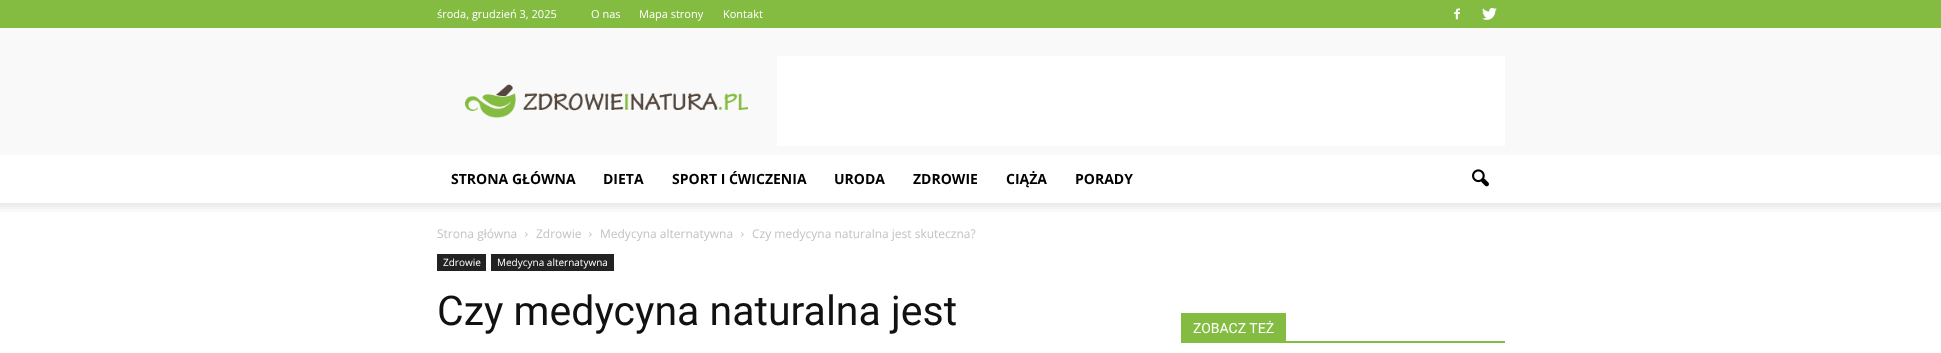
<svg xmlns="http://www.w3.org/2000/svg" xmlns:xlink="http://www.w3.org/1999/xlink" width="1941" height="353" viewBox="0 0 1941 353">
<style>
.cls-1{font:11px Open Sans;fill:#ffffff}
.cls-2{font:bold 14px Open Sans;fill:#000000}
.cls-3{font:12px Open Sans;fill:#c3c3c3}
.cls-4{font:10px Open Sans;fill:#ffffff}
.cls-5{font:41px Roboto;fill:#111111}
.cls-6{font:14px Roboto;fill:#ffffff}
</style>
<rect width="100%" height="100%" fill="#ffffff"/>
<rect fill="#84bc41" x="0" y="0" width="1941" height="28"/>
<image xlink:href="image0.png" x="1454" y="8" width="6" height="12"/>
<image xlink:href="image1.png" x="1482" y="7" width="15" height="13"/>
<rect fill="#f9f9f9" x="0" y="28" width="1941" height="127"/>
<image xlink:href="image2.png" x="465" y="84" width="283" height="34"/>
<rect fill="#ffffff" x="777" y="56" width="728" height="90"/>
<image xlink:href="image3.png" x="1472" y="169" width="17" height="18"/>
<image xlink:href="image4.png" x="0" y="203" width="1941" height="9"/>
<image xlink:href="image5.png" x="525" y="232" width="3" height="5"/>
<image xlink:href="image5.png" x="589" y="232" width="3" height="5"/>
<image xlink:href="image5.png" x="741" y="232" width="3" height="5"/>
<rect fill="#222222" x="437" y="254" width="49" height="17"/>
<rect fill="#222222" x="491" y="254" width="123" height="17"/>
<rect fill="#84bc41" x="1181" y="341" width="324" height="2"/>
<rect fill="#84bc41" x="1181" y="313" width="105" height="28"/>
<text class="cls-1" x="437" y="18">środa, grudzień 3, 2025</text>
<text class="cls-1" x="591" y="18">O nas</text>
<text class="cls-1" x="639" y="18">Mapa strony</text>
<text class="cls-1" x="723" y="18">Kontakt</text>
<text class="cls-2" x="451" y="184">STRONA GŁÓWNA</text>
<text class="cls-2" x="603" y="184">DIETA</text>
<text class="cls-2" x="672" y="184">SPORT I ĆWICZENIA</text>
<text class="cls-2" x="834" y="184">URODA</text>
<text class="cls-2" x="913" y="184">ZDROWIE</text>
<text class="cls-2" x="1006" y="184">CIĄŻA</text>
<text class="cls-2" x="1075" y="184">PORADY</text>
<text class="cls-3" x="437" y="238">Strona główna</text>
<text class="cls-3" x="536" y="238">Zdrowie</text>
<text class="cls-3" x="600" y="238">Medycyna alternatywna</text>
<text class="cls-3" x="752" y="238">Czy medycyna naturalna jest skuteczna?</text>
<text class="cls-4" x="443" y="266">Zdrowie</text>
<text class="cls-4" x="497" y="266">Medycyna alternatywna</text>
<text class="cls-5" x="437" y="325">Czy medycyna naturalna jest</text>
<text class="cls-6" x="1193" y="333">ZOBACZ TEŻ</text>
</svg>
